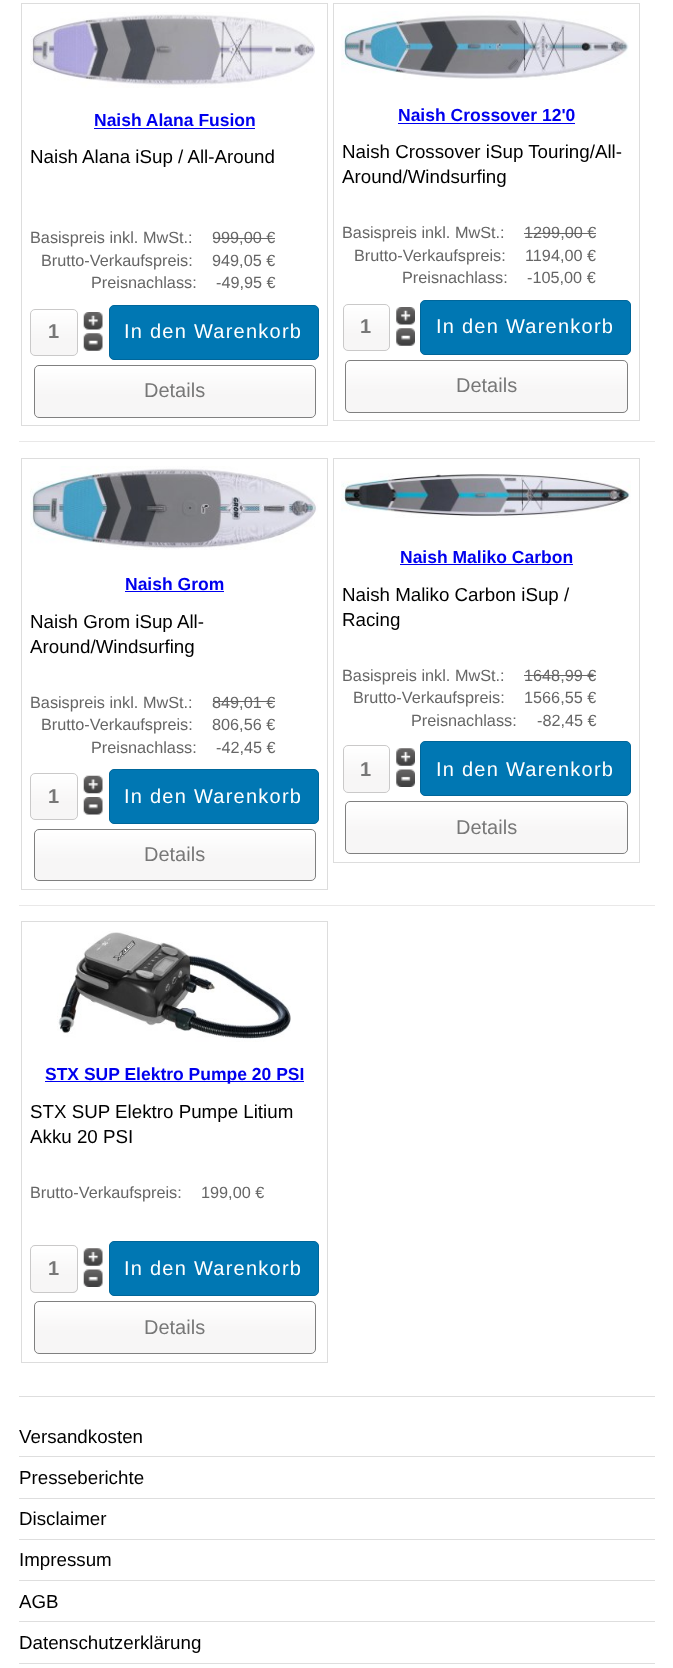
<svg xmlns="http://www.w3.org/2000/svg" xmlns:xlink="http://www.w3.org/1999/xlink" width="673" height="1668" viewBox="0 0 673 1668">
<style>
.cls-1{font:bold 17.5px Liberation Sans;fill:#0000ee}
.cls-2{font:18.75px Liberation Sans;fill:#000000}
.cls-3{font:16.25px Liberation Sans;fill:#666666}
.cls-4{font:bold 20px Liberation Sans;fill:#777777}
.cls-5{font:20px Liberation Sans;letter-spacing:1.25px;fill:#ffffff}
.cls-6{font:20px Liberation Sans;fill:#777777}
</style>
<rect width="100%" height="100%" fill="#ffffff"/>
<rect fill="none" stroke="#dddddd" x="21.5" y="3.5" width="306" height="422"/>
<image xlink:href="image0.png" x="30" y="12" width="285" height="76"/>
<rect fill="#0000ee" x="94" y="128" width="161" height="1"/>
<rect fill="#666666" x="213" y="238" width="62" height="1"/>
<image xlink:href="image1.png" x="30" y="309" width="48" height="47"/>
<rect fill="none" stroke="#cac9c9" x="30.5" y="309.5" width="47" height="46" rx="4.5"/>
<image xlink:href="image2.png" x="83" y="312" width="20" height="18"/>
<image xlink:href="image3.png" x="83" y="333" width="20" height="18"/>
<rect fill="#0077b3" stroke="#00669a" x="109.5" y="305.5" width="209" height="54" rx="4.5"/>
<image xlink:href="image4.png" x="34" y="365" width="282" height="52"/>
<rect fill="none" stroke="#808080" x="34.5" y="365.5" width="281" height="52" rx="4.5"/>
<rect fill="none" stroke="#dddddd" x="333.5" y="3.5" width="306" height="417"/>
<image xlink:href="image5.png" x="341" y="11" width="288" height="69"/>
<rect fill="#0000ee" x="398" y="123" width="177" height="1"/>
<rect fill="#666666" x="524" y="233" width="72" height="1"/>
<image xlink:href="image6.png" x="343" y="304" width="47" height="47"/>
<rect fill="none" stroke="#cac9c9" x="343.5" y="304.5" width="46" height="46" rx="4.5"/>
<image xlink:href="image7.png" x="396" y="307" width="19" height="18"/>
<image xlink:href="image8.png" x="396" y="328" width="19" height="18"/>
<rect fill="#0077b3" stroke="#00669a" x="420.5" y="300.5" width="210" height="54" rx="4.5"/>
<rect fill="#e8e8e8" x="345" y="360" width="283" height="53" rx="5"/>
<image xlink:href="image9.png" x="345" y="360" width="283" height="52"/>
<rect fill="none" stroke="#808080" x="345.5" y="360.5" width="282" height="52" rx="4.5"/>
<rect fill="#e9e8e8" x="19" y="441" width="636" height="1"/>
<rect fill="none" stroke="#dddddd" x="21.5" y="458.5" width="306" height="431"/>
<image xlink:href="image10.png" x="30" y="466" width="288" height="84"/>
<rect fill="#0000ee" x="125" y="591" width="99" height="1"/>
<rect fill="#666666" x="213" y="701" width="62" height="1"/>
<image xlink:href="image11.png" x="30" y="773" width="48" height="46"/>
<rect fill="none" stroke="#cac9c9" x="30.5" y="773.5" width="47" height="46" rx="4.5"/>
<image xlink:href="image12.png" x="83" y="775" width="20" height="19"/>
<image xlink:href="image13.png" x="83" y="797" width="20" height="18"/>
<rect fill="#0077b3" stroke="#00669a" x="109.5" y="769.5" width="209" height="54" rx="4.5"/>
<image xlink:href="image14.png" x="34" y="829" width="282" height="52"/>
<rect fill="none" stroke="#808080" x="34.5" y="829.5" width="281" height="51" rx="4.5"/>
<rect fill="none" stroke="#dddddd" x="333.5" y="458.5" width="306" height="404"/>
<image xlink:href="image15.png" x="341" y="473" width="290" height="45"/>
<rect fill="#0000ee" x="400" y="564" width="173" height="1"/>
<rect fill="#666666" x="524" y="675" width="72" height="1"/>
<image xlink:href="image16.png" x="343" y="745" width="47" height="47"/>
<rect fill="none" stroke="#cac9c9" x="343.5" y="745.5" width="46" height="47" rx="4.5"/>
<image xlink:href="image17.png" x="396" y="748" width="19" height="18"/>
<image xlink:href="image18.png" x="396" y="769" width="19" height="18"/>
<rect fill="#0077b3" stroke="#00669a" x="420.5" y="741.5" width="210" height="54" rx="4.5"/>
<image xlink:href="image19.png" x="345" y="802" width="283" height="51"/>
<rect fill="none" stroke="#808080" x="345.5" y="801.5" width="282" height="52" rx="4.5"/>
<rect fill="#e9e8e8" x="19" y="905" width="636" height="1"/>
<rect fill="none" stroke="#dddddd" x="21.5" y="921.5" width="306" height="441"/>
<image xlink:href="image20.png" x="57" y="931" width="234" height="111"/>
<rect fill="#0000ee" x="45" y="1081" width="259" height="1"/>
<rect fill="#e8e8e8" x="30" y="1245" width="48" height="48" rx="5"/>
<image xlink:href="image21.png" x="30" y="1245" width="48" height="47"/>
<rect fill="none" stroke="#cac9c9" x="30.5" y="1245.5" width="47" height="47" rx="4.5"/>
<image xlink:href="image22.png" x="83" y="1248" width="20" height="18"/>
<image xlink:href="image23.png" x="83" y="1269" width="20" height="18"/>
<rect fill="#0077b3" stroke="#00669a" x="109.5" y="1241.5" width="209" height="54" rx="4.5"/>
<image xlink:href="image24.png" x="34" y="1302" width="282" height="51"/>
<rect fill="none" stroke="#808080" x="34.5" y="1301.5" width="281" height="52" rx="4.5"/>
<rect fill="#dedede" x="19" y="1396" width="636" height="1"/>
<rect fill="#dedede" x="19" y="1456" width="636" height="1"/>
<rect fill="#dedede" x="19" y="1498" width="636" height="1"/>
<rect fill="#dedede" x="19" y="1539" width="636" height="1"/>
<rect fill="#dedede" x="19" y="1580" width="636" height="1"/>
<rect fill="#dedede" x="19" y="1621" width="636" height="1"/>
<rect fill="#dedede" x="19" y="1663" width="636" height="1"/>
<text class="cls-1" x="94" y="126">Naish Alana Fusion</text>
<text class="cls-2" x="30" y="163">Naish Alana iSup / All-Around</text>
<text class="cls-3" x="30" y="243">Basispreis inkl. MwSt.:</text>
<text class="cls-3" x="212" y="243">999,00 €</text>
<text class="cls-3" x="41" y="266">Brutto-Verkaufspreis:</text>
<text class="cls-3" x="212" y="266">949,05 €</text>
<text class="cls-3" x="91" y="288">Preisnachlass:</text>
<text class="cls-3" x="216" y="288">-49,95 €</text>
<text class="cls-4" x="48" y="338">1</text>
<text class="cls-5" x="124" y="338">In den Warenkorb</text>
<text class="cls-6" x="144" y="397">Details</text>
<text class="cls-1" x="398" y="121">Naish Crossover 12'0</text>
<text class="cls-2"><tspan x="342" y="158">Naish Crossover iSup Touring/All-</tspan><tspan x="342" y="183">Around/Windsurfing</tspan></text>
<text class="cls-3" x="342" y="238">Basispreis inkl. MwSt.:</text>
<text class="cls-3" x="524" y="238">1299,00 €</text>
<text class="cls-3" x="354" y="261">Brutto-Verkaufspreis:</text>
<text class="cls-3" x="525" y="261">1194,00 €</text>
<text class="cls-3" x="402" y="283">Preisnachlass:</text>
<text class="cls-3" x="527" y="283">-105,00 €</text>
<text class="cls-4" x="360" y="333">1</text>
<text class="cls-5" x="436" y="333">In den Warenkorb</text>
<text class="cls-6" x="456" y="392">Details</text>
<text class="cls-1" x="125" y="590">Naish Grom</text>
<text class="cls-2"><tspan x="30" y="628">Naish Grom iSup All-</tspan><tspan x="30" y="653">Around/Windsurfing</tspan></text>
<text class="cls-3" x="30" y="708">Basispreis inkl. MwSt.:</text>
<text class="cls-3" x="212" y="708">849,01 €</text>
<text class="cls-3" x="41" y="730">Brutto-Verkaufspreis:</text>
<text class="cls-3" x="212" y="730">806,56 €</text>
<text class="cls-3" x="91" y="753">Preisnachlass:</text>
<text class="cls-3" x="216" y="753">-42,45 €</text>
<text class="cls-4" x="48" y="803">1</text>
<text class="cls-5" x="124" y="803">In den Warenkorb</text>
<text class="cls-6" x="144" y="861">Details</text>
<text class="cls-1" x="400" y="563">Naish Maliko Carbon</text>
<text class="cls-2"><tspan x="342" y="601">Naish Maliko Carbon iSup /</tspan><tspan x="342" y="626">Racing</tspan></text>
<text class="cls-3" x="342" y="681">Basispreis inkl. MwSt.:</text>
<text class="cls-3" x="524" y="681">1648,99 €</text>
<text class="cls-3" x="353" y="703">Brutto-Verkaufspreis:</text>
<text class="cls-3" x="524" y="703">1566,55 €</text>
<text class="cls-3" x="411" y="726">Preisnachlass:</text>
<text class="cls-3" x="537" y="726">-82,45 €</text>
<text class="cls-4" x="360" y="776">1</text>
<text class="cls-5" x="436" y="776">In den Warenkorb</text>
<text class="cls-6" x="456" y="834">Details</text>
<text class="cls-1" x="45" y="1080">STX SUP Elektro Pumpe 20 PSI</text>
<text class="cls-2"><tspan x="30" y="1118">STX SUP Elektro Pumpe Litium</tspan><tspan x="30" y="1143">Akku 20 PSI</tspan></text>
<text class="cls-3" x="30" y="1198">Brutto-Verkaufspreis:</text>
<text class="cls-3" x="201" y="1198">199,00 €</text>
<text class="cls-4" x="48" y="1275">1</text>
<text class="cls-5" x="124" y="1275">In den Warenkorb</text>
<text class="cls-6" x="144" y="1334">Details</text>
<text class="cls-2" x="19" y="1443">Versandkosten</text>
<text class="cls-2" x="19" y="1484">Presseberichte</text>
<text class="cls-2" x="19" y="1525">Disclaimer</text>
<text class="cls-2" x="19" y="1566">Impressum</text>
<text class="cls-2" x="19" y="1608">AGB</text>
<text class="cls-2" x="19" y="1649">Datenschutzerklärung</text>
</svg>
